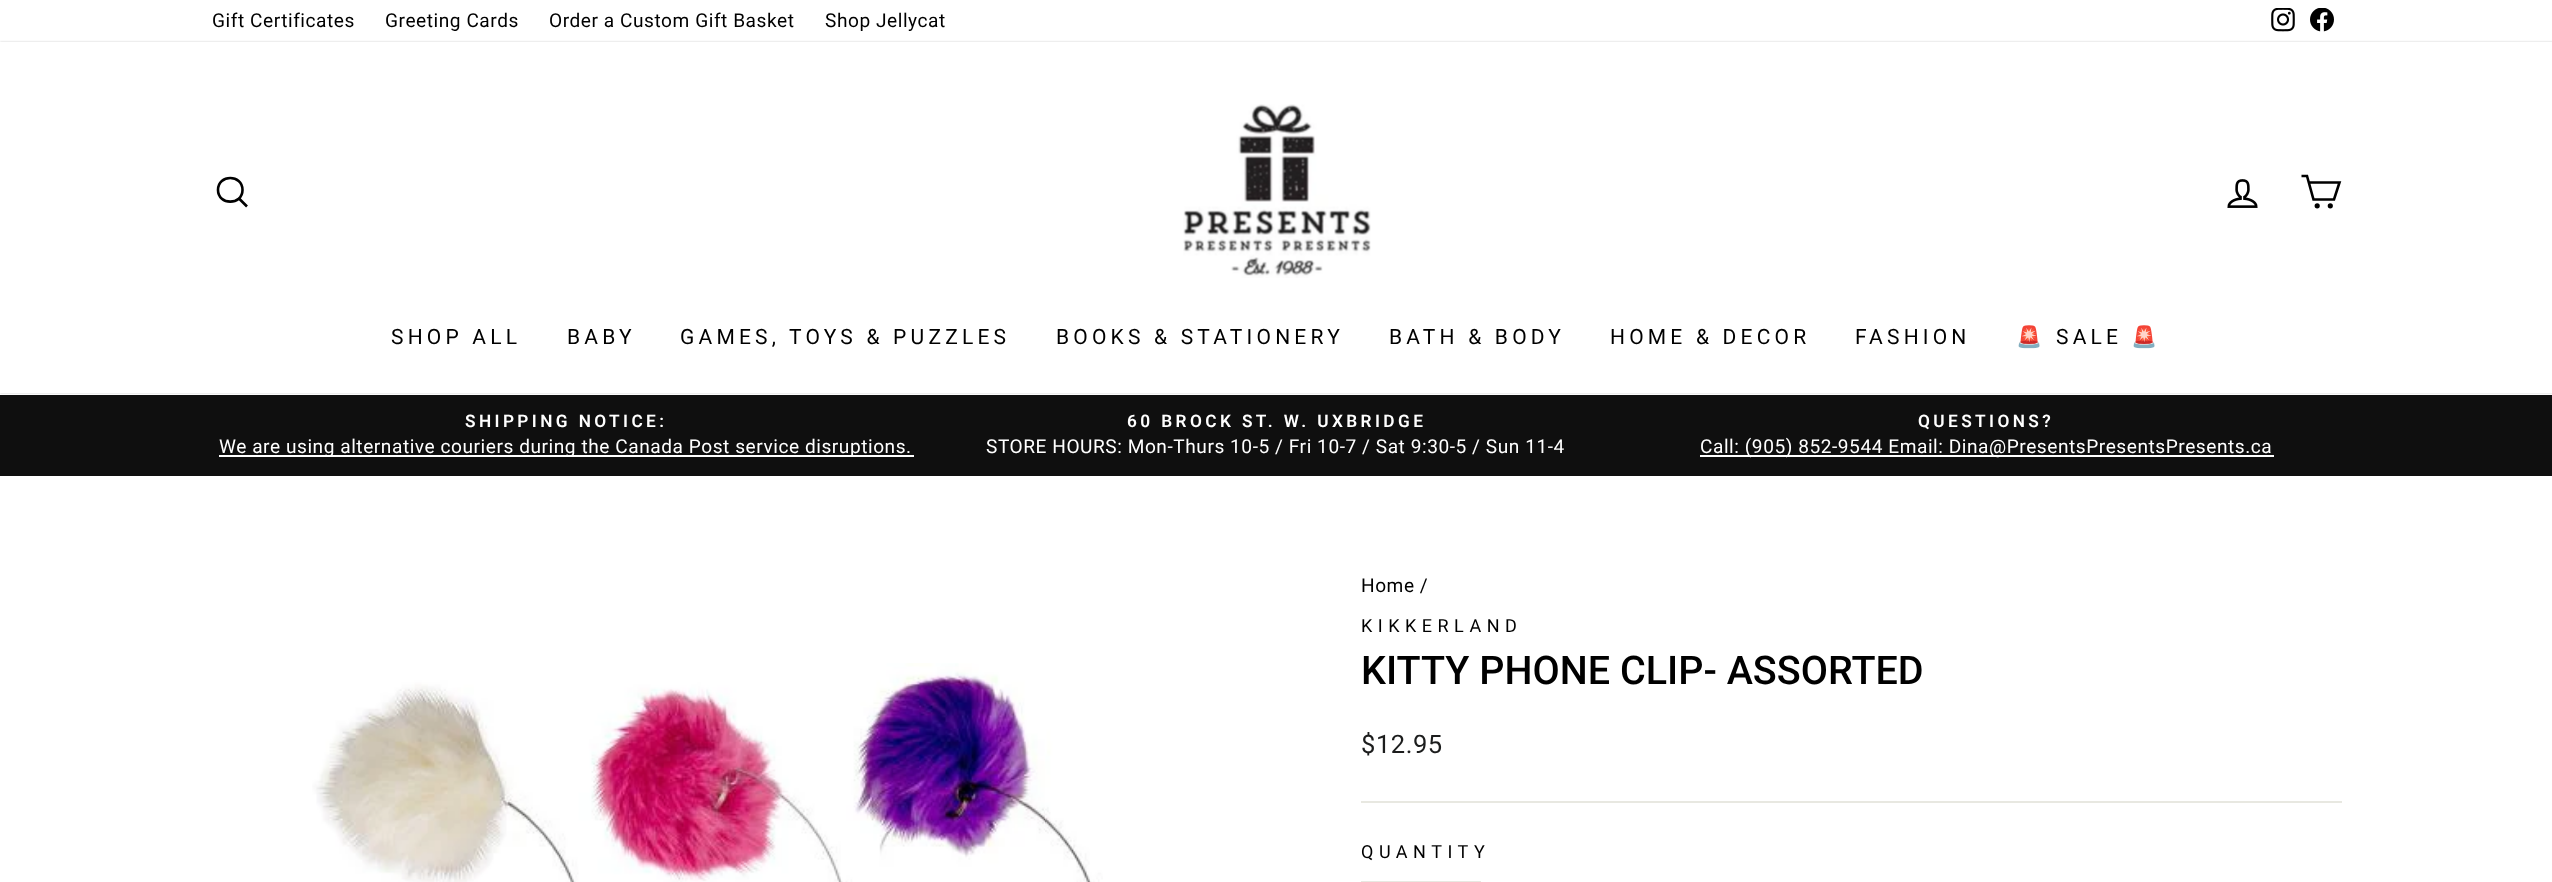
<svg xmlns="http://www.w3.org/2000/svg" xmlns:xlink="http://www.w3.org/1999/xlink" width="2552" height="882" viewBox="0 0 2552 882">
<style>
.cls-1{font:19.1px Roboto;letter-spacing:0.55px;fill:#000000}
.cls-2{font:21px Roboto;letter-spacing:4.2px;fill:#000000}
.cls-3{font:21px Noto Color Emoji;letter-spacing:4.2px;fill:#000000}
.cls-4{font:600 17.25px Roboto;letter-spacing:3.4px;fill:#ffffff}
.cls-5{font:19.1px Roboto;letter-spacing:0.55px;fill:#ffffff}
.cls-6{font:18px Roboto;letter-spacing:5.5px;fill:#000000}
.cls-7{font:500 39.5px Roboto;fill:#000000}
.cls-8{font:25.5px Roboto;letter-spacing:0.55px;fill:#1c1d1d}
</style>
<defs>
<clipPath id="clip1"><path d="M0 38H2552V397H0ZM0 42H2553V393H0Z" clip-rule="evenodd"/></clipPath>
</defs>
<rect width="100%" height="100%" fill="#ffffff"/>
<image xlink:href="image0.png" x="2271" y="8" width="24" height="24"/>
<image xlink:href="image1.png" x="2310" y="8" width="24" height="24"/>
<rect fill="#0f0f0f" x="0" y="395" width="2552" height="81"/>
<g clip-path="url(#clip1)">
<rect fill="#000000" fill-opacity="0.2" filter="blur(1px)" x="0" y="42" width="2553" height="351"/>
</g>
<path fill="none" stroke="#000000" stroke-width="2.6" d="M242.5 190C242.5 205.5 218 205.5 218 190C218 174 242.5 174 242.5 190ZM247 206.5L239 198.5"/>
<image xlink:href="image2.png" x="1183" y="104" width="188" height="174"/>
<image xlink:href="image3.png" x="2227" y="179" width="31" height="29"/>
<path fill="none" stroke="#000000" stroke-width="2.6" d="M2308.5 182.5H2339.5L2334 199.5H2313.5L2307 176H2301.5"/>
<circle fill="none" stroke="#000000" stroke-width="2.6" cx="2317.2" cy="205.8" r="1.3"/>
<circle fill="none" stroke="#000000" stroke-width="2.6" cx="2330.3" cy="205.8" r="1.3"/>
<rect fill="#ffffff" x="219" y="455" width="695" height="2"/>
<rect fill="#ffffff" x="1700" y="455" width="574" height="2"/>
<image xlink:href="image4.png" x="312" y="663" width="791" height="219"/>
<rect fill="#e8e8e1" x="1361" y="801" width="981" height="2"/>
<rect fill="none" stroke="#e8e8e1" stroke-width="2" x="1362" y="882" width="118" height="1"/>
<text class="cls-1" x="212" y="27">Gift Certificates</text>
<text class="cls-1" x="385" y="27">Greeting Cards</text>
<text class="cls-1" x="549" y="27">Order a Custom Gift Basket</text>
<text class="cls-1" x="825" y="27">Shop Jellycat</text>
<text class="cls-2" x="391" y="344">SHOP ALL</text>
<text class="cls-2" x="567" y="344">BABY</text>
<text class="cls-2" x="680" y="344">GAMES, TOYS &amp; PUZZLES</text>
<text class="cls-2" x="1056" y="344">BOOKS &amp; STATIONERY</text>
<text class="cls-2" x="1389" y="344">BATH &amp; BODY</text>
<text class="cls-2" x="1610" y="344">HOME &amp; DECOR</text>
<text class="cls-2" x="1855" y="344">FASHION</text>
<text class="cls-3" x="2016" y="344">🚨</text>
<text class="cls-2" x="2056" y="344">SALE</text>
<text class="cls-3" x="2131" y="344">🚨</text>
<text class="cls-4" x="465" y="427">SHIPPING NOTICE:</text>
<text class="cls-5" x="219" y="453">We are using alternative couriers during the Canada Post service disruptions.</text>
<text class="cls-4" x="1127" y="427">60 BROCK ST. W. UXBRIDGE</text>
<text class="cls-5" x="986" y="453">STORE HOURS: Mon-Thurs 10-5 / Fri 10-7 / Sat 9:30-5 / Sun 11-4</text>
<text class="cls-4" x="1918" y="427">QUESTIONS?</text>
<text class="cls-5" x="1700" y="453">Call: (905) 852-9544 Email: Dina@PresentsPresentsPresents.ca</text>
<text class="cls-1" x="1361" y="592">Home /</text>
<text class="cls-6" x="1361" y="632">KIKKERLAND</text>
<text class="cls-7" x="1361" y="684">KITTY PHONE CLIP- ASSORTED</text>
<text class="cls-8" x="1361" y="753">$12.95</text>
<text class="cls-6" x="1361" y="858">QUANTITY</text>
</svg>
